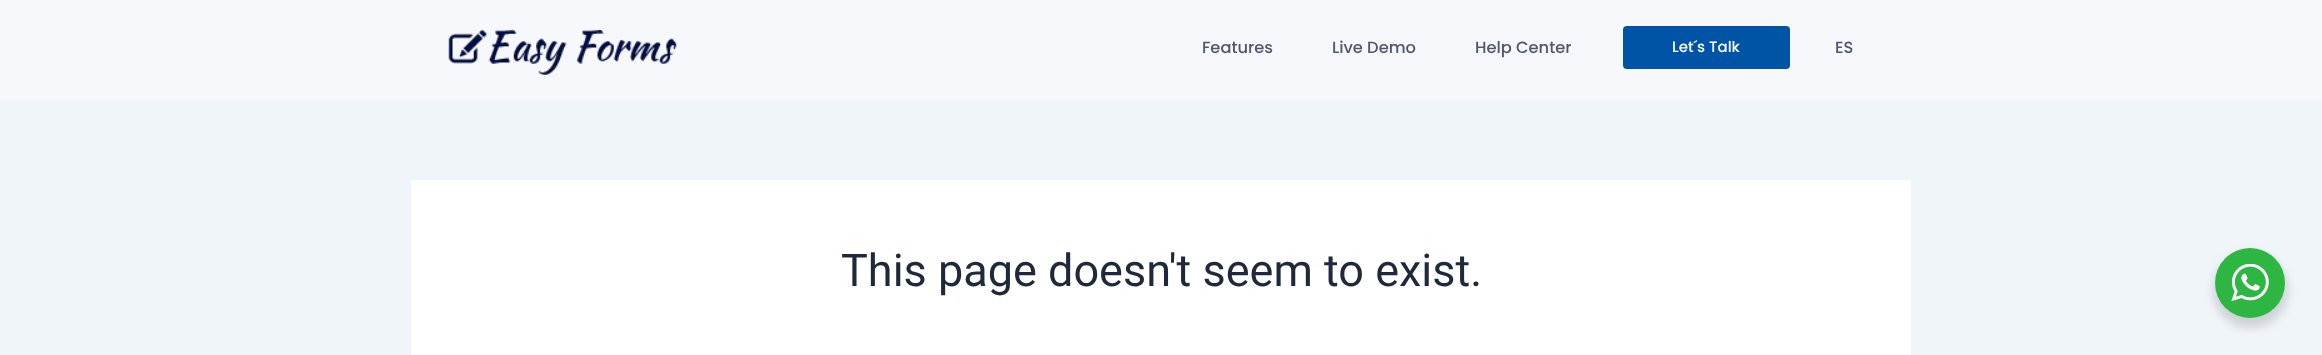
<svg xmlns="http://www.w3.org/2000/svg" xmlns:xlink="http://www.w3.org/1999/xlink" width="2322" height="355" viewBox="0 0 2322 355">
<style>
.cls-1{font:500 16.25px Poppins;fill:#515671}
.cls-2{font:500 15px Poppins;fill:#ffffff}
.cls-3{font:45px Roboto;fill:#1e293b}
</style>
<rect width="100%" height="100%" fill="#f0f5fa"/>
<rect fill="#f6f8fb" x="0" y="0" width="2322" height="100"/>
<image xlink:href="image0.png" x="448" y="29" width="229" height="46"/>
<rect fill="#0054a6" x="1623" y="26" width="167" height="43" rx="4"/>
<rect fill="#ffffff" x="411" y="180" width="1500" height="175"/>
<rect fill="#000000" fill-opacity="0.14" filter="blur(5px)" x="2213" y="253" width="75" height="75" rx="37.5"/>
<circle fill="#2db742" cx="2250" cy="283" r="35"/>
<image xlink:href="image1.png" x="2231" y="264" width="38" height="37"/>
<text class="cls-1" x="1202" y="53">Features</text>
<text class="cls-1" x="1332" y="53">Live Demo</text>
<text class="cls-1" x="1475" y="53">Help Center</text>
<text class="cls-2" x="1672" y="52">Let´s Talk</text>
<text class="cls-1" x="1835" y="53">ES</text>
<text class="cls-3" x="841" y="286">This page doesn't seem to exist.</text>
</svg>
